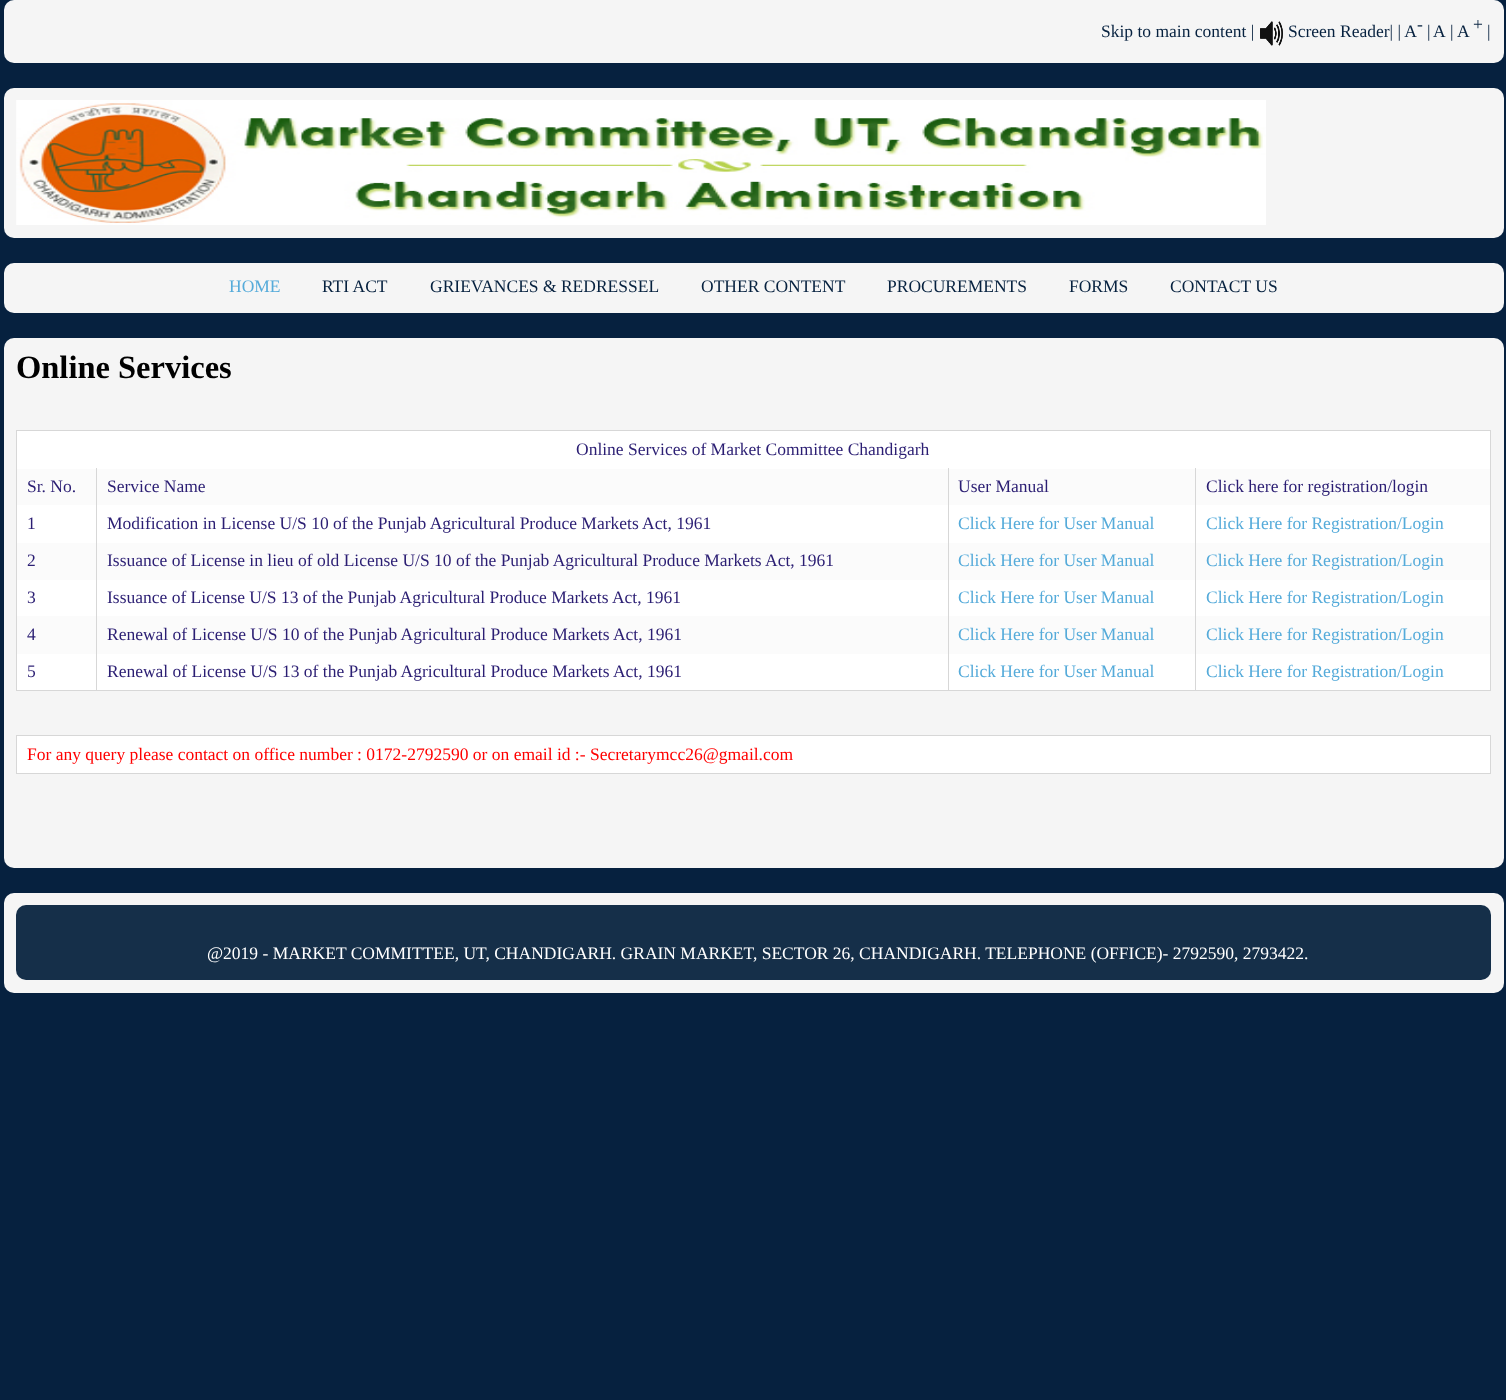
<svg xmlns="http://www.w3.org/2000/svg" xmlns:xlink="http://www.w3.org/1999/xlink" width="1506" height="1400" viewBox="0 0 1506 1400">
<style>
.cls-1{font:17.5px Liberation Serif;fill:#06213f}
.cls-2{font:17.5px Liberation Serif;fill:#55abda}
.cls-3{font:bold 32.5px Liberation Serif;fill:#000000}
.cls-4{font:17.5px Liberation Serif;fill:#2b1e73}
.cls-5{font:17.5px Liberation Serif;fill:#ff0000}
.cls-6{font:17.5px Liberation Serif;fill:#ffffff}
</style>
<rect width="100%" height="100%" fill="#06213f"/>
<rect fill="#f5f5f5" x="4" y="0" width="1500" height="63" rx="10"/>
<image xlink:href="image0.png" x="1260" y="21" width="23" height="25"/>
<rect fill="#f5f5f5" x="4" y="88" width="1500" height="150" rx="10"/>
<image xlink:href="image1.png" x="16" y="100" width="1250" height="125"/>
<rect fill="#f5f5f5" x="4" y="263" width="1500" height="50" rx="10"/>
<rect fill="#f5f5f5" x="4" y="338" width="1500" height="530" rx="10"/>
<rect fill="#d7d7d7" x="16" y="430" width="1475" height="1"/>
<rect fill="#d7d7d7" x="1490" y="430" width="1" height="261"/>
<rect fill="#d7d7d7" x="16" y="690" width="1475" height="1"/>
<rect fill="#d7d7d7" x="16" y="430" width="1" height="261"/>
<rect fill="#ffffff" x="17" y="431" width="1473" height="38"/>
<rect fill="#fbfbfb" x="17" y="469" width="1473" height="36"/>
<rect fill="#ffffff" x="17" y="505" width="1473" height="38"/>
<rect fill="#fbfbfb" x="17" y="543" width="1473" height="37"/>
<rect fill="#ffffff" x="17" y="580" width="1473" height="36"/>
<rect fill="#fbfbfb" x="17" y="616" width="1473" height="38"/>
<rect fill="#ffffff" x="17" y="654" width="1473" height="36"/>
<rect fill="#d7d7d7" x="96" y="468" width="1" height="223"/>
<rect fill="#d7d7d7" x="948" y="468" width="1" height="223"/>
<rect fill="#d7d7d7" x="1195" y="468" width="1" height="223"/>
<rect fill="#d7d7d7" x="16" y="735" width="1475" height="1"/>
<rect fill="#d7d7d7" x="1490" y="735" width="1" height="39"/>
<rect fill="#d7d7d7" x="16" y="773" width="1475" height="1"/>
<rect fill="#d7d7d7" x="16" y="735" width="1" height="39"/>
<rect fill="#ffffff" x="17" y="736" width="1473" height="37"/>
<rect fill="#f5f5f5" x="4" y="893" width="1500" height="100" rx="10"/>
<rect fill="#152f49" x="16" y="905" width="1475" height="75" rx="10"/>
<text class="cls-1" x="1101" y="37">Skip to main content |</text>
<text class="cls-1" x="1288" y="37">Screen Reader| | A</text>
<text class="cls-1" x="1417" y="30">-</text>
<text class="cls-1" x="1427" y="37" word-spacing="-1">| A</text>
<text class="cls-1" x="1450" y="37">| A</text>
<text class="cls-1" x="1473" y="30">+</text>
<text class="cls-1" x="1487" y="37">|</text>
<text class="cls-2" x="229" y="292">HOME</text>
<text class="cls-1" x="322" y="292">RTI ACT</text>
<text class="cls-1" x="430" y="292">GRIEVANCES &amp; REDRESSEL</text>
<text class="cls-1" x="701" y="292">OTHER CONTENT</text>
<text class="cls-1" x="887" y="292">PROCUREMENTS</text>
<text class="cls-1" x="1069" y="292">FORMS</text>
<text class="cls-1" x="1170" y="292">CONTACT US</text>
<text class="cls-3" x="16" y="378">Online Services</text>
<text class="cls-4" x="576" y="455">Online Services of Market Committee Chandigarh</text>
<text class="cls-4" x="27" y="492">Sr. No.</text>
<text class="cls-4" x="107" y="492">Service Name</text>
<text class="cls-4" x="958" y="492">User Manual</text>
<text class="cls-4" x="1206" y="492">Click here for registration/login</text>
<text class="cls-4" x="27" y="529">1</text>
<text class="cls-4" x="107" y="529">Modification in License U/S 10 of the Punjab Agricultural Produce Markets Act, 1961</text>
<text class="cls-2" x="958" y="529">Click Here for User Manual</text>
<text class="cls-2" x="1206" y="529">Click Here for Registration/Login</text>
<text class="cls-4" x="27" y="566">2</text>
<text class="cls-4" x="107" y="566">Issuance of License in lieu of old License U/S 10 of the Punjab Agricultural Produce Markets Act, 1961</text>
<text class="cls-2" x="958" y="566">Click Here for User Manual</text>
<text class="cls-2" x="1206" y="566">Click Here for Registration/Login</text>
<text class="cls-4" x="27" y="603">3</text>
<text class="cls-4" x="107" y="603">Issuance of License U/S 13 of the Punjab Agricultural Produce Markets Act, 1961</text>
<text class="cls-2" x="958" y="603">Click Here for User Manual</text>
<text class="cls-2" x="1206" y="603">Click Here for Registration/Login</text>
<text class="cls-4" x="27" y="640">4</text>
<text class="cls-4" x="107" y="640">Renewal of License U/S 10 of the Punjab Agricultural Produce Markets Act, 1961</text>
<text class="cls-2" x="958" y="640">Click Here for User Manual</text>
<text class="cls-2" x="1206" y="640">Click Here for Registration/Login</text>
<text class="cls-4" x="27" y="677">5</text>
<text class="cls-4" x="107" y="677">Renewal of License U/S 13 of the Punjab Agricultural Produce Markets Act, 1961</text>
<text class="cls-2" x="958" y="677">Click Here for User Manual</text>
<text class="cls-2" x="1206" y="677">Click Here for Registration/Login</text>
<text class="cls-5" x="27" y="760">For any query please contact on office number : 0172-2792590 or on email id :- Secretarymcc26@gmail.com</text>
<text class="cls-6" x="207" y="959">@2019 - MARKET COMMITTEE, UT, CHANDIGARH. GRAIN MARKET, SECTOR 26, CHANDIGARH. TELEPHONE (OFFICE)- 2792590, 2793422.</text>
</svg>
